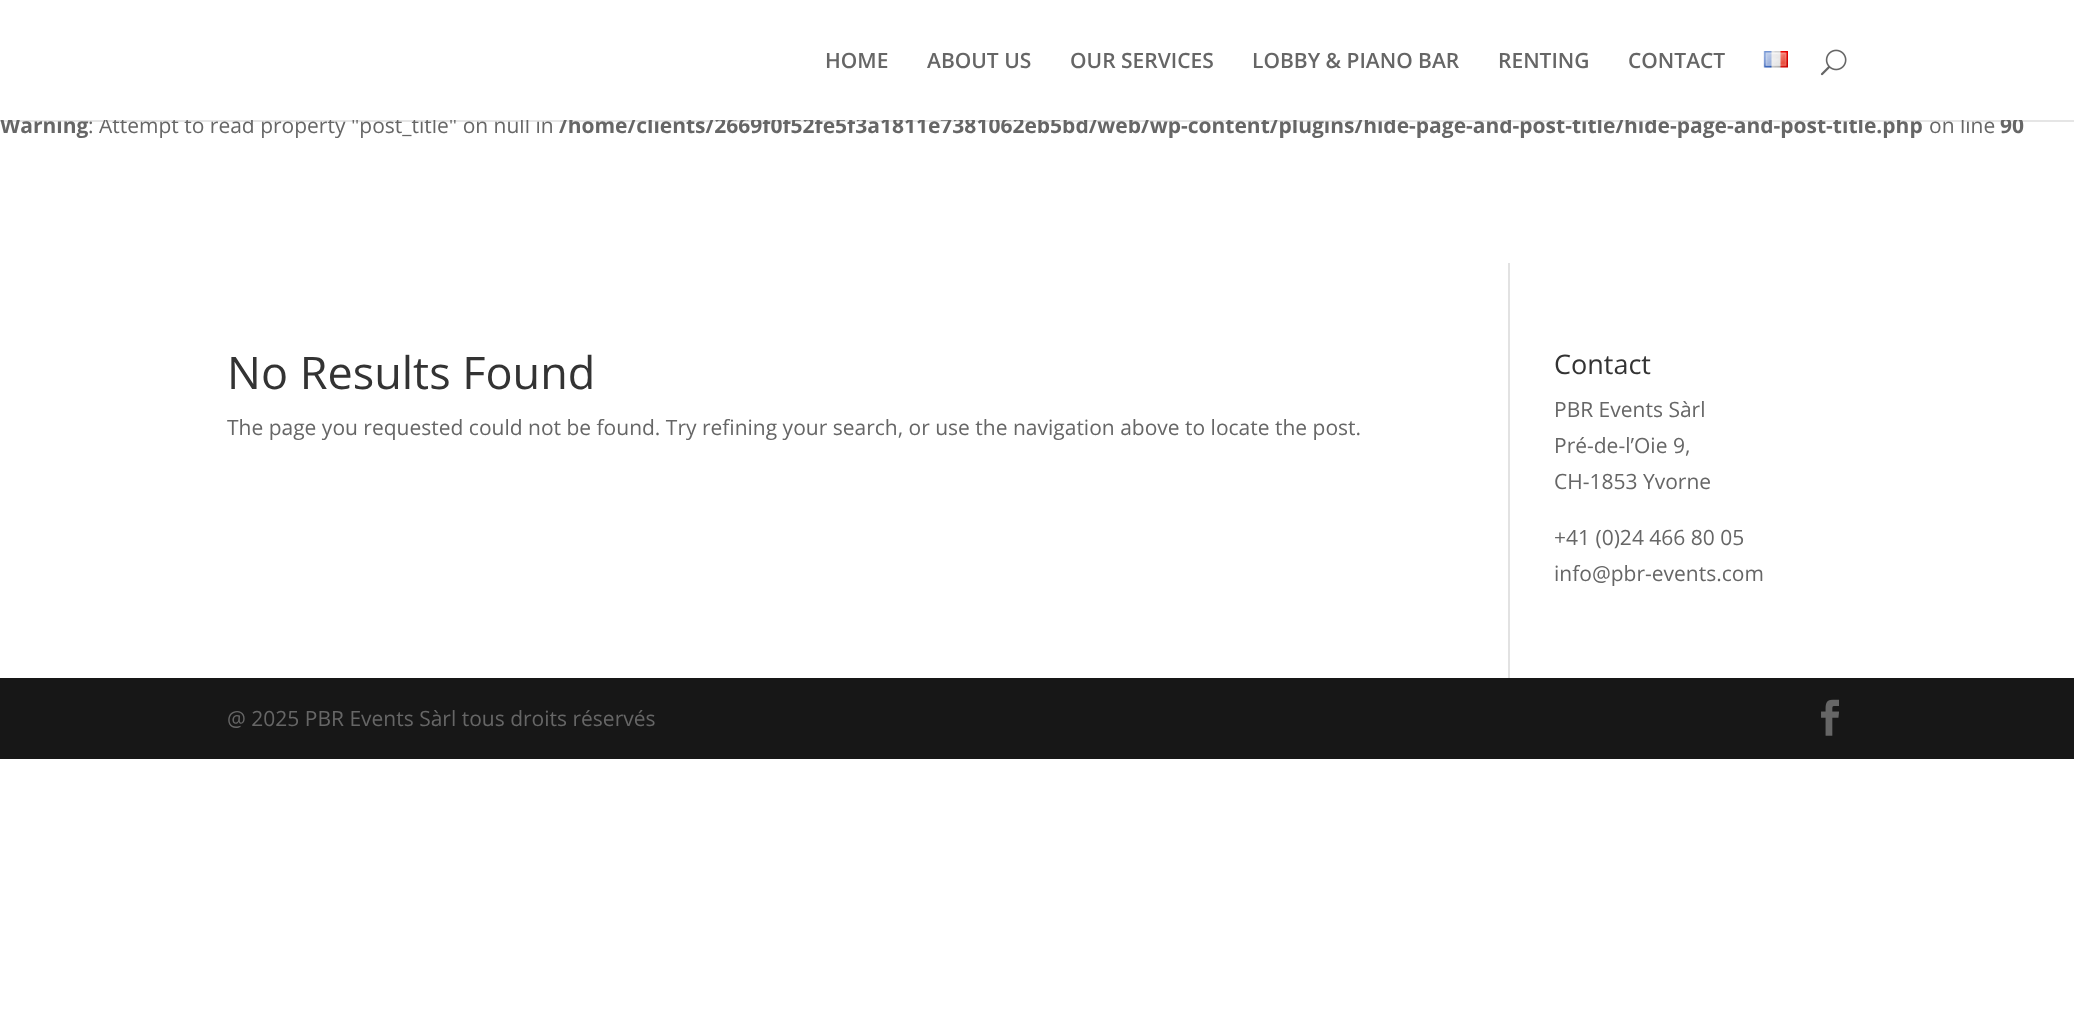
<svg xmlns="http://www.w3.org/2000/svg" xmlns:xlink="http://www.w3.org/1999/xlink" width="2074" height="1020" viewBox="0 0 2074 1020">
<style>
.cls-1{font:600 21px Open Sans;fill:#666666}
.cls-2{font:45px Open Sans;fill:#333333}
.cls-3{font:21px Open Sans;fill:#666666}
.cls-4{font:27px Open Sans;fill:#333333}
.cls-5{font:bold 21px Open Sans;fill:#666666}
</style>
<rect width="100%" height="100%" fill="#ffffff"/>
<path fill="#000000" fill-opacity="0.1" d="M0 120V122H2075V2H2074V120Z"/>
<image xlink:href="image0.png" x="1763" y="51" width="25" height="17"/>
<image xlink:href="image1.png" x="1820" y="49" width="27" height="27"/>
<rect fill="#e2e2e2" x="1508" y="263" width="2" height="415"/>
<rect fill="#171717" x="0" y="678" width="2074" height="81"/>
<image xlink:href="image2.png" x="1821" y="699" width="18" height="37"/>
<text class="cls-1" x="825" y="68">HOME</text>
<text class="cls-1" x="927" y="68">ABOUT US</text>
<text class="cls-1" x="1070" y="68">OUR SERVICES</text>
<text class="cls-1" x="1252" y="68">LOBBY &amp; PIANO BAR</text>
<text class="cls-1" x="1498" y="68">RENTING</text>
<text class="cls-1" x="1628" y="68">CONTACT</text>
<text class="cls-2" x="227" y="389">No Results Found</text>
<text class="cls-3" x="227" y="435">The page you requested could not be found. Try refining your search, or use the navigation above to locate the post.</text>
<text class="cls-4" x="1554" y="374">Contact</text>
<text class="cls-3"><tspan x="1554" y="417">PBR Events Sàrl</tspan><tspan x="1554" y="453">Pré-de-l’Oie 9,</tspan><tspan x="1554" y="489">CH-1853 Yvorne</tspan></text>
<text class="cls-3"><tspan x="1554" y="545">+41 (0)24 466 80 05</tspan><tspan x="1554" y="581">info@pbr-events.com</tspan></text>
<text class="cls-3" x="227" y="726">@ 2025 PBR Events Sàrl tous droits réservés</text>
<text class="cls-5" x="0" y="133">Warning</text>
<text class="cls-3" x="88" y="133">: Attempt to read property "post_title" on null in</text>
<text class="cls-5" x="559" y="133">/home/clients/2669f0f52fe5f3a1811e7381062eb5bd/web/wp-content/plugins/hide-page-and-post-title/hide-page-and-post-title.php</text>
<text class="cls-3" x="1929" y="133">on line</text>
<text class="cls-5" x="2000" y="133">90</text>
<rect fill="#ffffff" x="0" y="116" width="2023" height="4"/>
</svg>
